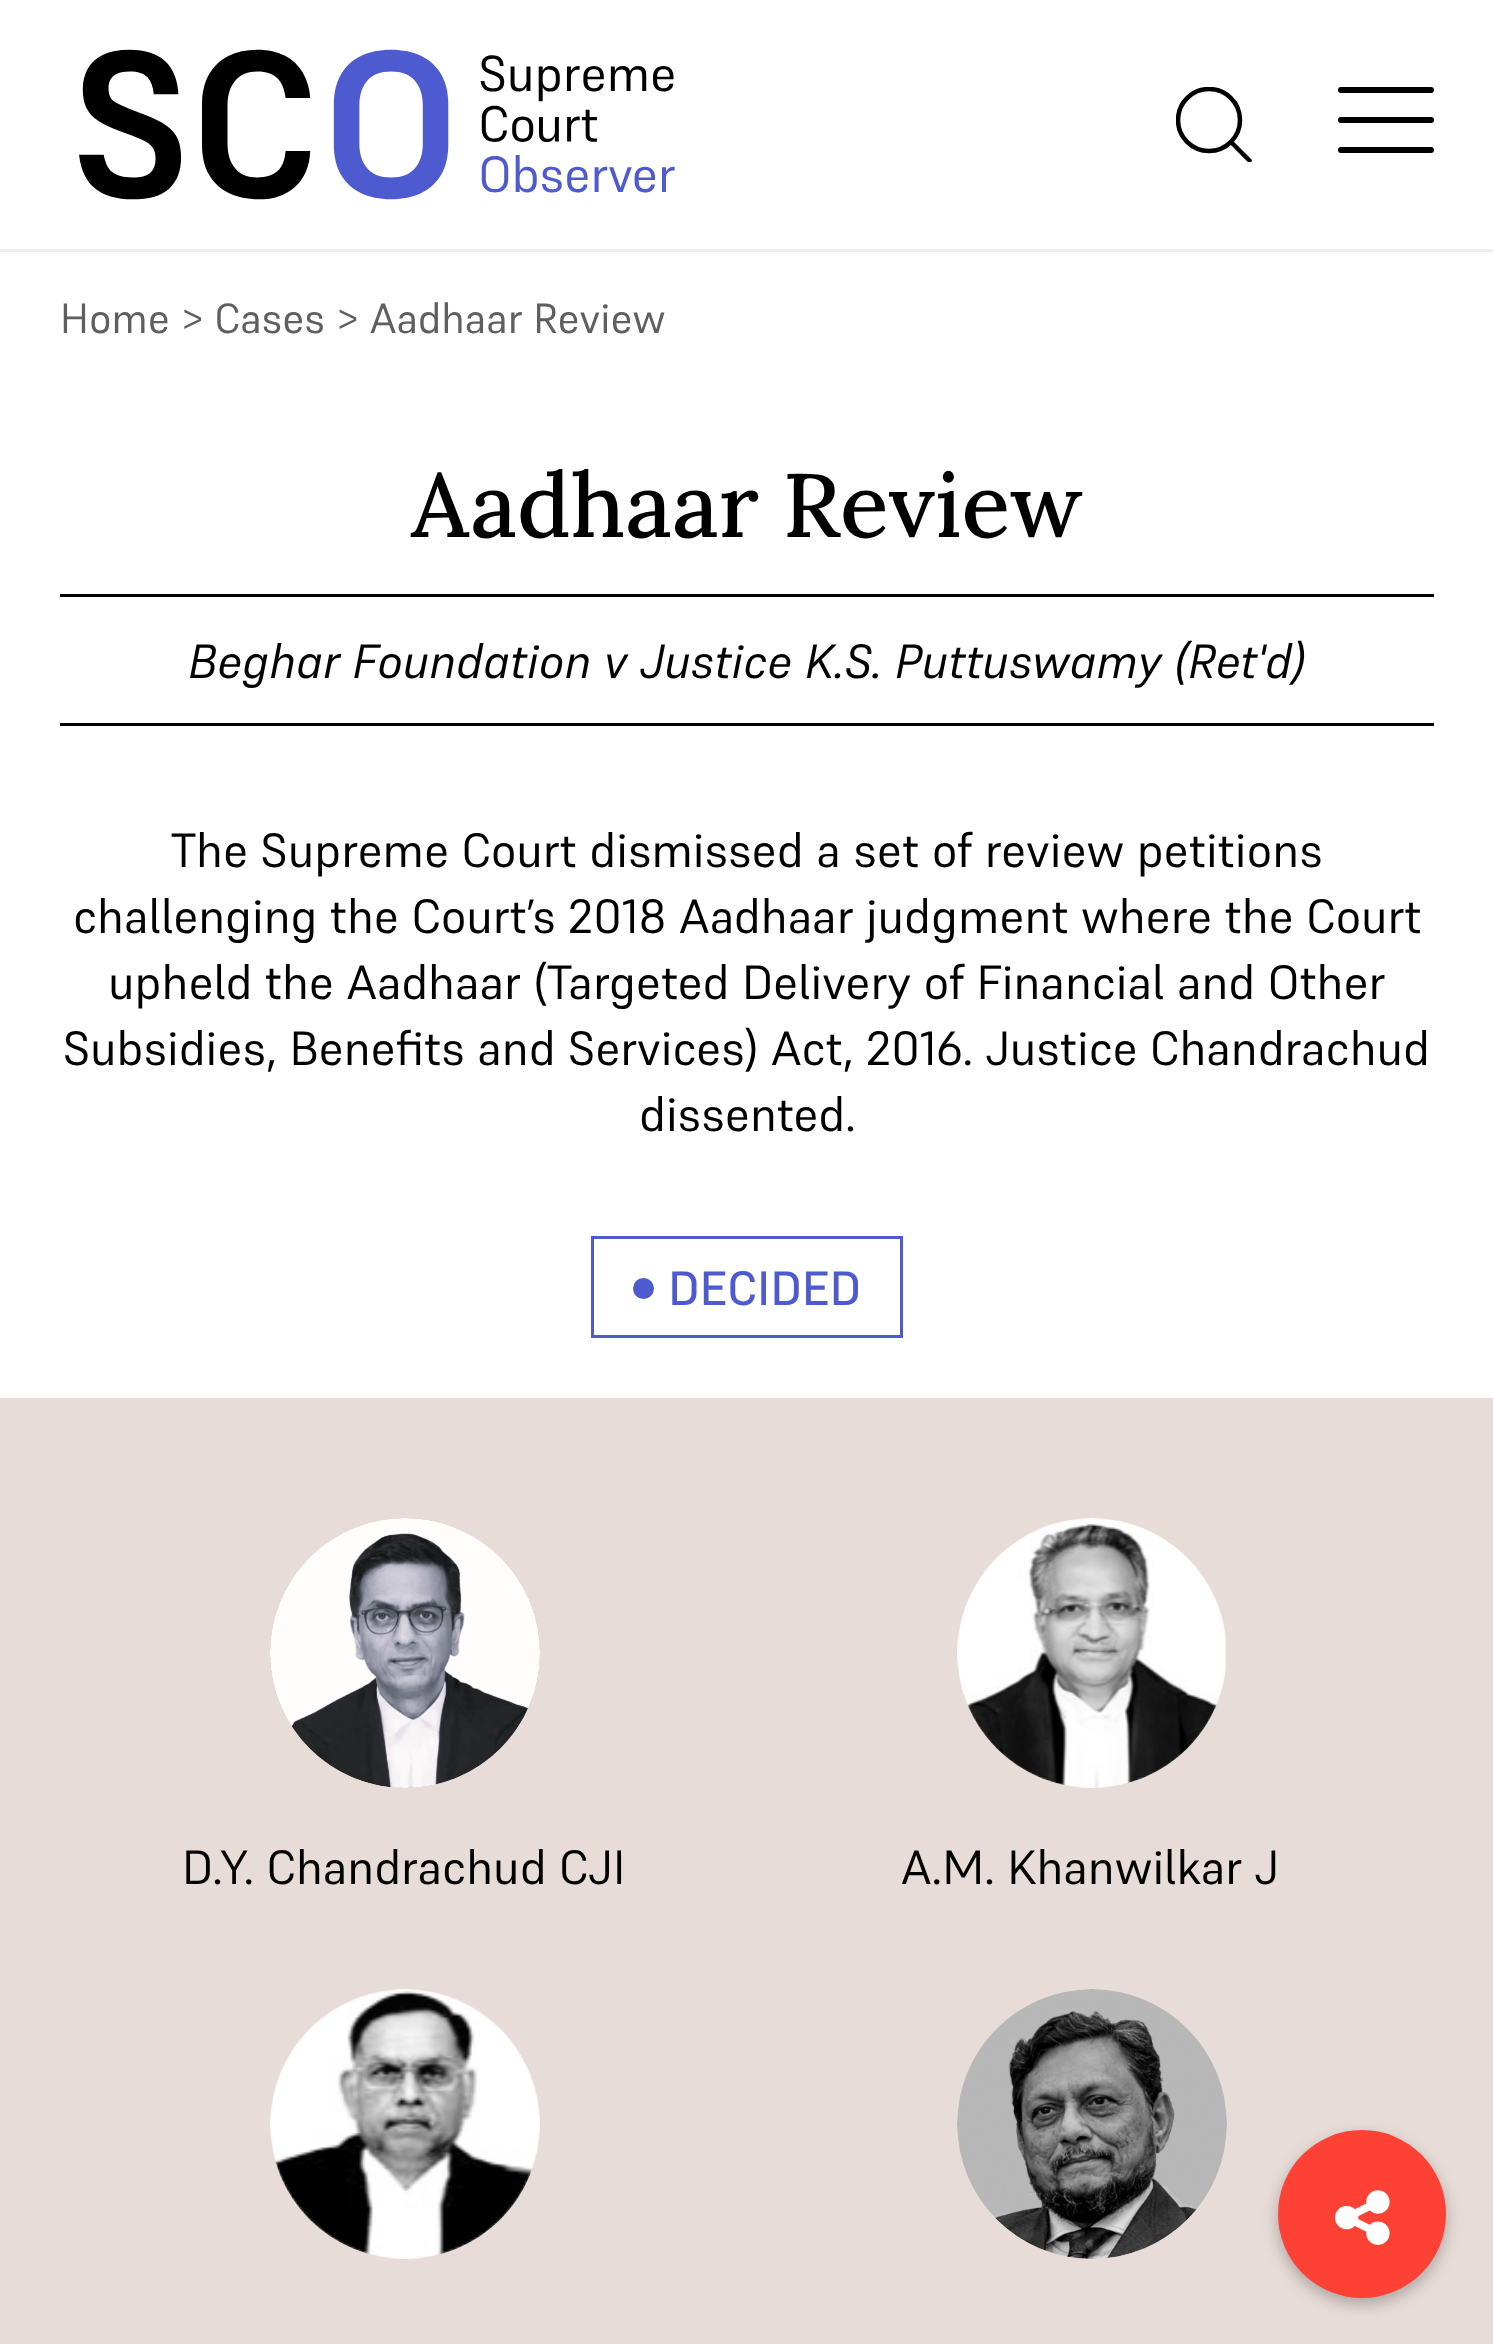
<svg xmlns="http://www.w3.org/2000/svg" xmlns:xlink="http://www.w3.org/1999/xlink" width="1493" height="2344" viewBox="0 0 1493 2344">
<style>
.cls-1{font:42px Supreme;fill:#5f5f5f}
.cls-2{font:500 90px Lora;fill:#000000}
.cls-3{font:italic 48px Supreme;fill:#000000}
.cls-4{font:48px Supreme;fill:#000000}
.cls-5{font:500 48px Supreme;fill:#4d5ad0}
</style>
<defs>
<clipPath id="clip1"><rect x="1176" y="87" width="78" height="75"/></clipPath>
</defs>
<rect width="100%" height="100%" fill="#ffffff"/>
<rect fill="#ededed" x="0" y="249" width="1493" height="3"/>
<image xlink:href="image0.png" x="79" y="49" width="596" height="151"/>
<g clip-path="url(#clip1)">
<circle fill="none" stroke="#000000" stroke-width="4.5" cx="1209" cy="120" r="31"/>
<path fill="none" stroke="#000000" stroke-width="4.5" stroke-linecap="round" d="M1231.5 142.5L1249.5 160.5"/>
</g>
<rect fill="#000000" x="1338" y="117" width="96" height="6" rx="3"/>
<rect fill="#000000" x="1338" y="87" width="96" height="6" rx="3"/>
<rect fill="#000000" x="1338" y="147" width="96" height="6" rx="3"/>
<rect fill="#000000" x="60" y="594" width="1374" height="3"/>
<rect fill="#000000" x="60" y="723" width="1374" height="3"/>
<rect fill="none" stroke="#4d5ad0" stroke-width="3" x="592.5" y="1237.5" width="309" height="99"/>
<circle fill="#4d5ad0" cx="643.5" cy="1288.5" r="10.5"/>
<rect fill="#e8dcd8" x="0" y="1398" width="1493" height="946"/>
<image xlink:href="image1.png" x="270" y="1518" width="270" height="270"/>
<image xlink:href="image2.png" x="957" y="1518" width="269" height="270"/>
<image xlink:href="image3.png" x="270" y="1989" width="270" height="270"/>
<image xlink:href="image4.png" x="957" y="1989" width="270" height="270"/>
<rect fill="#000000" fill-opacity="0.26" filter="blur(7.5px)" x="1278" y="2136" width="168" height="168" rx="84"/>
<circle fill="#fd4235" cx="1362" cy="2214" r="84"/>
<image xlink:href="image5.png" x="1335" y="2190" width="55" height="55"/>
<text class="cls-1" x="60" y="333">Home &gt; Cases &gt; Aadhaar Review</text>
<text class="cls-2" x="411" y="537">Aadhaar Review</text>
<text class="cls-3" x="188" y="678">Beghar Foundation v Justice K.S. Puttuswamy (Ret'd)</text>
<text class="cls-4" x="171" y="867">The Supreme Court dismissed a set of review petitions</text>
<text class="cls-4" x="73" y="933">challenging the Court’s 2018 Aadhaar judgment where the Court</text>
<text class="cls-4" x="108" y="999">upheld the Aadhaar (Targeted Delivery of Financial and Other</text>
<text class="cls-4" x="63" y="1065">Subsidies, Benefits and Services) Act, 2016. Justice Chandrachud</text>
<text class="cls-4" x="639" y="1131">dissented.</text>
<text class="cls-5" x="668" y="1305">DECIDED</text>
<text class="cls-4" x="182" y="1884">D.Y. Chandrachud CJI</text>
<text class="cls-4" x="901" y="1884">A.M. Khanwilkar J</text>
</svg>
